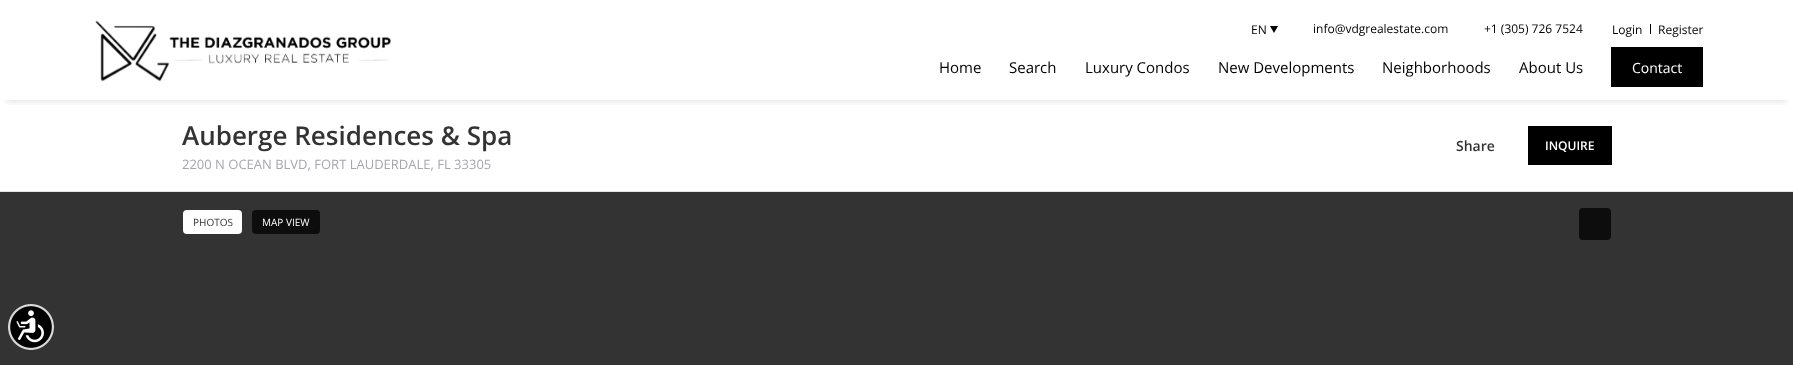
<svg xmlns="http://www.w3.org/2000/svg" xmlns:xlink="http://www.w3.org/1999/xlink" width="1793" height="365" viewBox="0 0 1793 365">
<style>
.cls-1{font:12px Open Sans;fill:#000000}
.cls-2{font:15px Open Sans;fill:#000000}
.cls-3{font:14px Open Sans;fill:#ffffff}
.cls-4{font:600 26px Open Sans;fill:#333333}
.cls-5{font:13px Open Sans;fill:#a7a6ae}
.cls-6{font:600 14px Open Sans;fill:#333333}
.cls-7{font:600 12px Open Sans;fill:#ffffff}
.cls-8{font:10px Open Sans;fill:#333333}
.cls-9{font:10px Open Sans;fill:#ffffff}
</style>
<defs>
<clipPath id="clip1"><rect x="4" y="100" width="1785" height="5"/></clipPath>
</defs>
<rect width="100%" height="100%" fill="#ffffff"/>
<g clip-path="url(#clip1)">
<rect fill="#000000" fill-opacity="0.1" filter="blur(3px)" x="6" y="14" width="1781" height="88"/>
</g>
<path fill="#000000" d="M1270 26H1278L1274 33Z"/>
<rect fill="#000000" x="1650" y="24" width="1" height="10"/>
<image xlink:href="image0.png" x="95" y="20" width="296" height="62"/>
<rect fill="#000000" x="1611" y="47" width="92" height="40"/>
<rect fill="#e5e5e5" x="0" y="191" width="1793" height="1"/>
<rect fill="#000000" x="1528" y="126" width="84" height="39"/>
<rect fill="#333333" x="0" y="192" width="1793" height="173"/>
<rect fill="#ffffff" x="183" y="210" width="59" height="24" rx="4"/>
<rect fill="#0d0d0d" x="252" y="210" width="68" height="24" rx="4"/>
<rect fill="#0d0d0d" x="1579" y="208" width="32" height="32" rx="4"/>
<circle fill="#000000" cx="31" cy="327" r="23"/>
<image xlink:href="image1.png" x="8" y="304" width="46" height="46"/>
<text class="cls-1" x="1251" y="34">EN</text>
<text class="cls-1" x="1313" y="33">info@vdgrealestate.com</text>
<text class="cls-1" x="1484" y="33">+1 (305) 726 7524</text>
<text class="cls-1" x="1612" y="34">Login</text>
<text class="cls-1" x="1658" y="34">Register</text>
<text class="cls-2" x="939" y="73">Home</text>
<text class="cls-2" x="1009" y="73">Search</text>
<text class="cls-2" x="1085" y="73">Luxury Condos</text>
<text class="cls-2" x="1218" y="73">New Developments</text>
<text class="cls-2" x="1382" y="73">Neighborhoods</text>
<text class="cls-2" x="1519" y="73">About Us</text>
<text class="cls-3" x="1632" y="73">Contact</text>
<text class="cls-4" x="182" y="145">Auberge Residences &amp; Spa</text>
<text class="cls-5" x="182" y="169">2200 N OCEAN BLVD, FORT LAUDERDALE, FL 33305</text>
<text class="cls-6" x="1456" y="151">Share</text>
<text class="cls-7" x="1545" y="150">INQUIRE</text>
<text class="cls-8" x="193" y="226">PHOTOS</text>
<text class="cls-9" x="262" y="226">MAP VIEW</text>
</svg>
